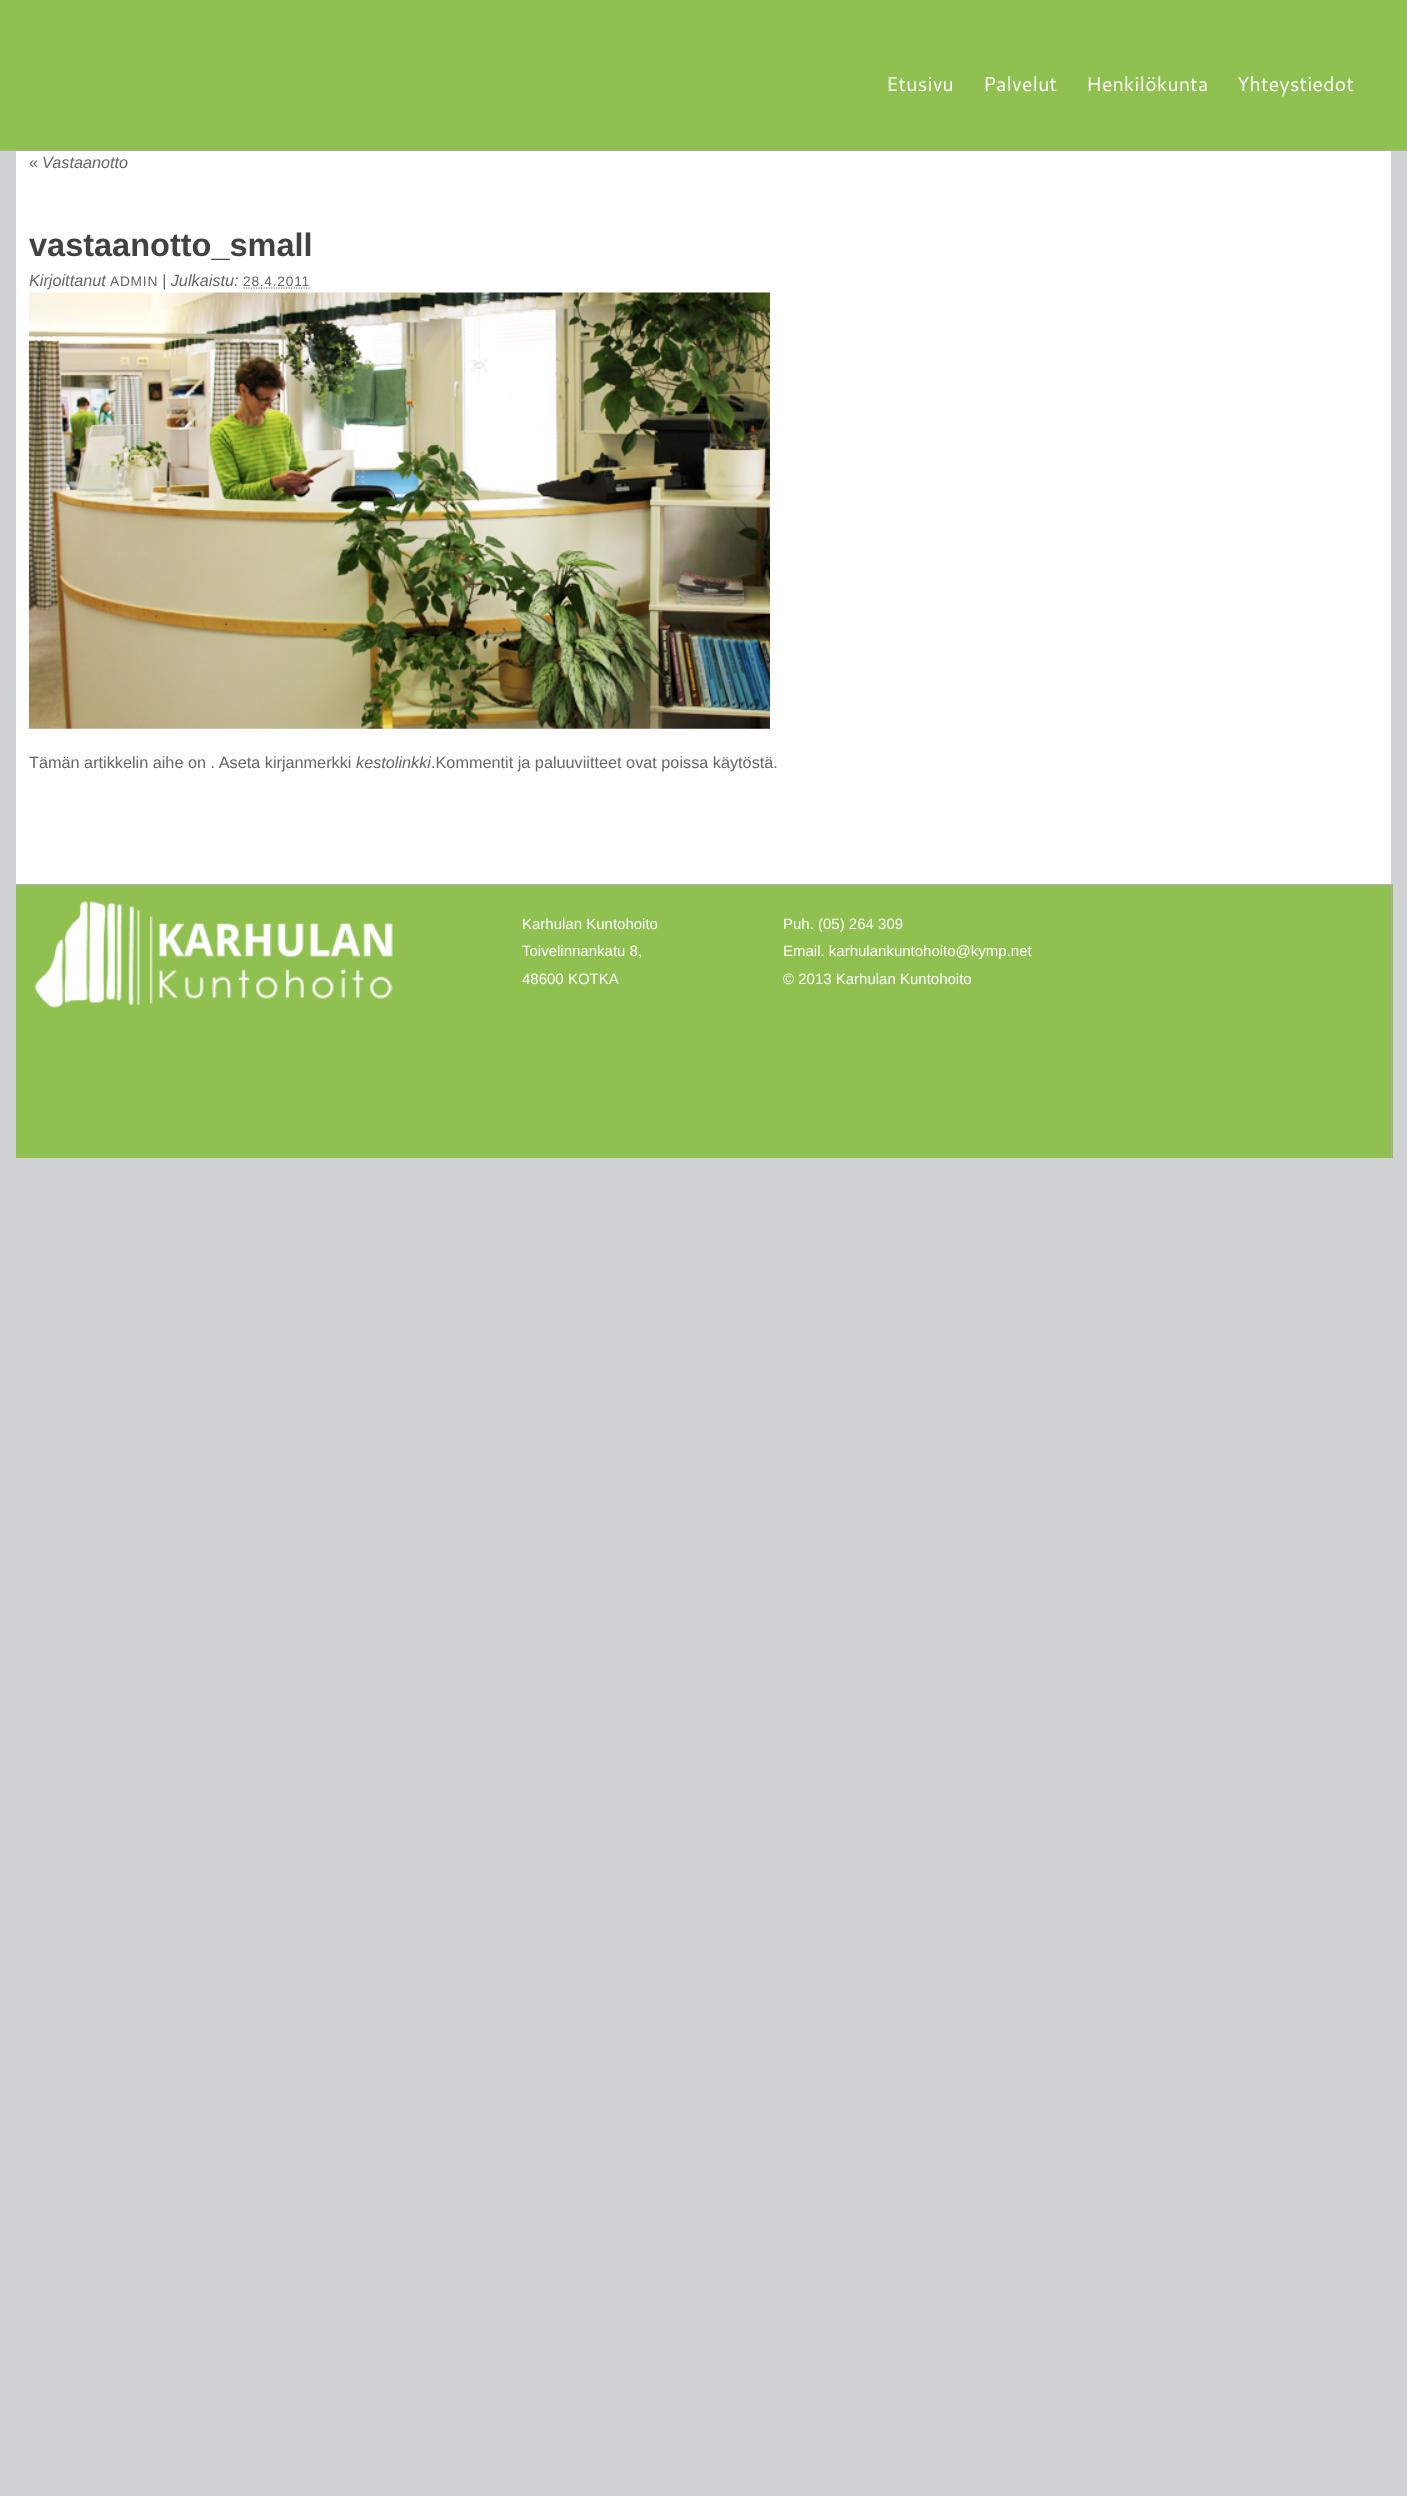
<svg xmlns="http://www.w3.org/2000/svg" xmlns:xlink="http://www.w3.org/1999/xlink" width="1407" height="2496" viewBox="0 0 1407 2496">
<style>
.cls-1{font:20px Cantarell;fill:#ffffff}
.cls-2{font:16.25px Liberation Sans;fill:#666666}
.cls-3{font:italic 16.25px Liberation Sans;fill:#666666}
.cls-4{font:bold 32.5px Liberation Sans;fill:#414241}
.cls-5{font:13.75px Liberation Sans;letter-spacing:0.75px;fill:#666666}
.cls-6{font:15px Liberation Sans;fill:#ffffff}
</style>
<rect width="100%" height="100%" fill="#d0d1d3"/>
<rect fill="#8fc050" x="0" y="0" width="1407" height="150"/>
<rect fill="#adadad" x="0" y="150" width="1407" height="1"/>
<rect fill="#ffffff" x="16" y="151" width="1375" height="733"/>
<path fill="none" stroke="#666666" stroke-width="1.2" stroke-dasharray="1.25 1.25" d="M243.5 288H309.5"/>
<image xlink:href="image0.png" x="28" y="292" width="742" height="437"/>
<rect fill="#8fc050" x="16" y="885" width="1377" height="273"/>
<rect fill="#adadad" x="16" y="884" width="1377" height="1"/>
<rect fill="#adadad" x="1391" y="884" width="1" height="274"/>
<image xlink:href="image1.png" x="34" y="901" width="359" height="107"/>
<text class="cls-1" x="886" y="91">Etusivu</text>
<text class="cls-1" x="983" y="91">Palvelut</text>
<text class="cls-1" x="1086" y="91">Henkilökunta</text>
<text class="cls-1" x="1237" y="91">Yhteystiedot</text>
<text class="cls-2" x="29" y="168">«</text>
<text class="cls-3" x="42" y="168">Vastaanotto</text>
<text class="cls-4" x="29" y="256">vastaanotto_small</text>
<text class="cls-3" x="29" y="286">Kirjoittanut</text>
<text class="cls-5" x="110" y="286">ADMIN</text>
<text class="cls-3" x="162" y="286">| Julkaistu:</text>
<text class="cls-5" x="243" y="286">28.4.2011</text>
<text class="cls-2" x="29" y="768">Tämän artikkelin aihe on . Aseta kirjanmerkki</text>
<text class="cls-3" x="356" y="768">kestolinkki</text>
<text class="cls-2" x="431" y="768">.Kommentit ja paluuviitteet ovat poissa käytöstä.</text>
<text class="cls-6"><tspan x="522" y="929">Karhulan Kuntohoito</tspan><tspan x="522" y="956">Toivelinnankatu 8,</tspan><tspan x="522" y="984">48600 KOTKA</tspan></text>
<text class="cls-6"><tspan x="783" y="929">Puh. (05) 264 309</tspan><tspan x="783" y="956">Email. karhulankuntohoito@kymp.net</tspan><tspan x="783" y="984">© 2013 Karhulan Kuntohoito</tspan></text>
</svg>
